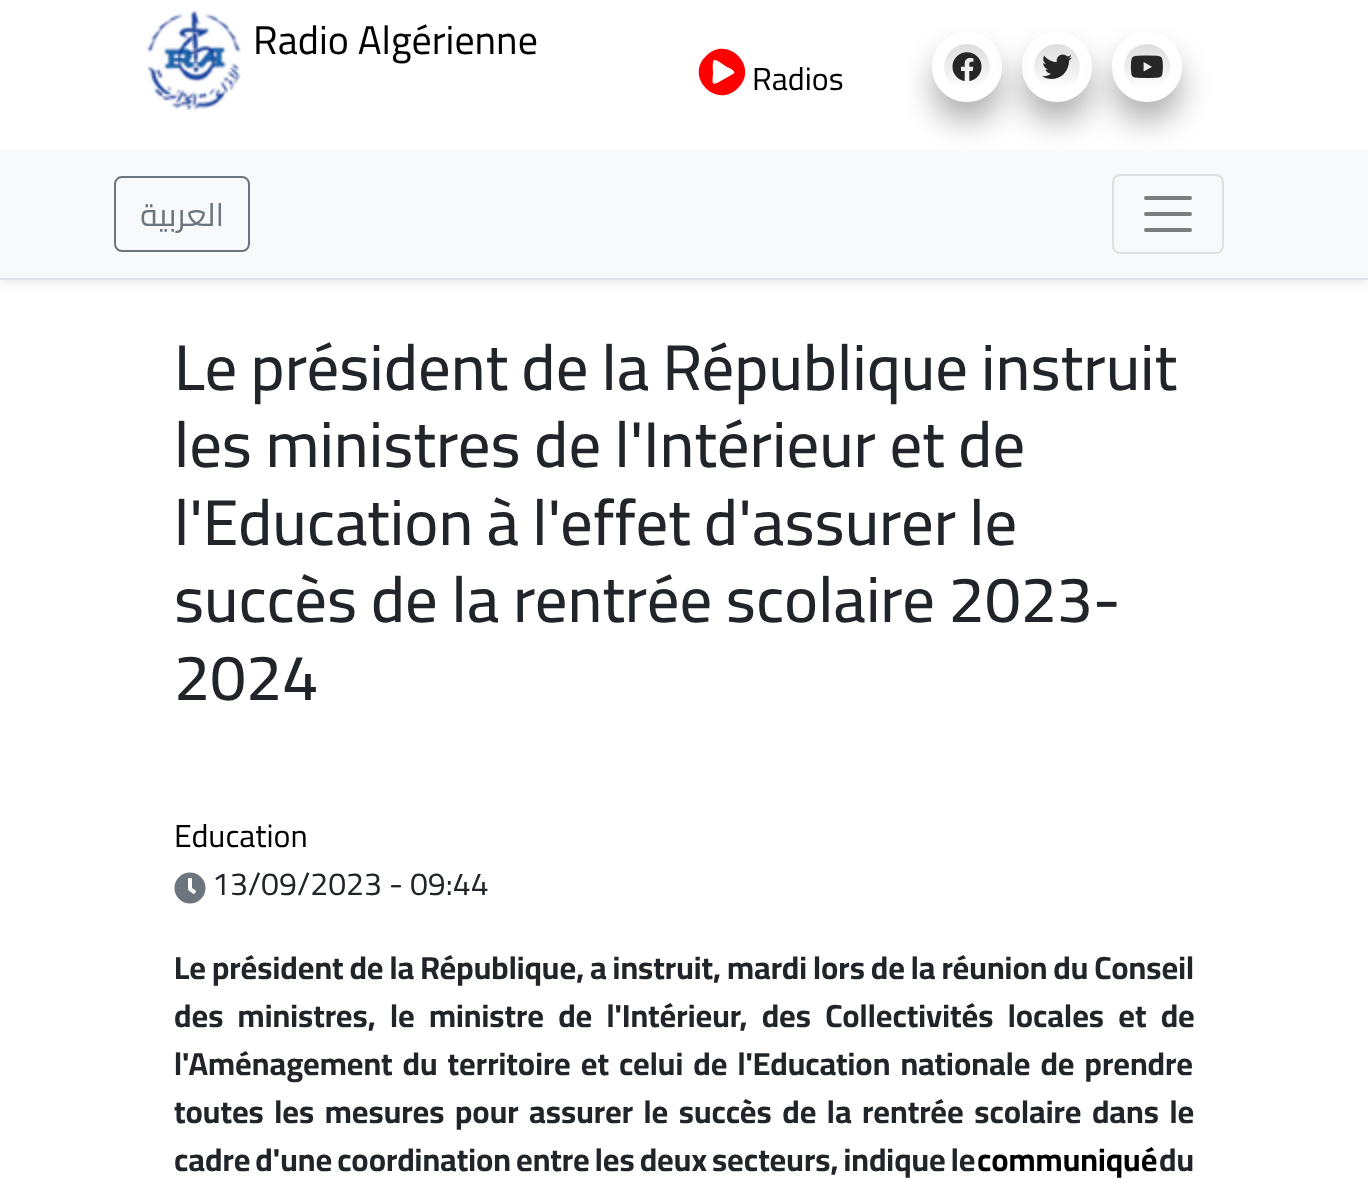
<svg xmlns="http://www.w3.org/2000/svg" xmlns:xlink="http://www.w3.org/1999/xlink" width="1368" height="1180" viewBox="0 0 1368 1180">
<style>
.cls-1{font:40px Cairo;fill:#010101}
.cls-2{font:32px Cairo;fill:#010101}
.cls-3{font:32px Cairo;direction:rtl;fill:#6c757d}
.cls-4{font:500 64.5px Cairo;fill:#212529}
.cls-5{font:32px Cairo;fill:#212529}
.cls-6{font:bold 32px Cairo;fill:#212529}
.cls-7{font:bold 32px Cairo;fill:#010101}
</style>
<defs>
<clipPath id="clip1"><path d="M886 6H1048V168H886ZM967 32C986.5 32 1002 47.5 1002 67C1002 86.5 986.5 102 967 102C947.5 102 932 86.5 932 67C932 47.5 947.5 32 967 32Z" clip-rule="evenodd"/></clipPath>
<linearGradient id="g1" gradientUnits="userSpaceOnUse" x1="967" y1="90" x2="967" y2="44"><stop offset="0" stop-color="#ffffff"/><stop offset="1" stop-color="#dddddd"/></linearGradient>
<clipPath id="clip2"><path d="M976 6H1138V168H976ZM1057 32C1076.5 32 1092 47.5 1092 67C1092 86.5 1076.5 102 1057 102C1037.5 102 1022 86.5 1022 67C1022 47.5 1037.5 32 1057 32Z" clip-rule="evenodd"/></clipPath>
<linearGradient id="g2" gradientUnits="userSpaceOnUse" x1="1057" y1="90" x2="1057" y2="44"><stop offset="0" stop-color="#ffffff"/><stop offset="1" stop-color="#dddddd"/></linearGradient>
<clipPath id="clip3"><path d="M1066 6H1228V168H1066ZM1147 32C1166.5 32 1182 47.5 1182 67C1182 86.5 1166.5 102 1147 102C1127.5 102 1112 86.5 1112 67C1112 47.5 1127.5 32 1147 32Z" clip-rule="evenodd"/></clipPath>
<linearGradient id="g3" gradientUnits="userSpaceOnUse" x1="1147" y1="90" x2="1147" y2="44"><stop offset="0" stop-color="#ffffff"/><stop offset="1" stop-color="#dddddd"/></linearGradient>
</defs>
<rect width="100%" height="100%" fill="#ffffff"/>
<image xlink:href="image0.png" x="147" y="10" width="94" height="100"/>
<path fill="#ff0000" d="M706 56C727 34 760 67 738 88C717 110 684 77 706 56ZM733 74C738 72 728 67 727 67C725 66 717 59 714 60C712 62 713 70 713 72C713 80 710 87 719 82Z"/>
<g clip-path="url(#clip1)">
<rect fill="#000000" fill-opacity="0.3" filter="blur(15px)" x="932" y="52" width="70" height="70" rx="35"/>
</g>
<circle fill="url(#g1)" cx="967" cy="67" r="23"/>
<image xlink:href="image1.png" x="952" y="52" width="30" height="29"/>
<g clip-path="url(#clip2)">
<rect fill="#000000" fill-opacity="0.3" filter="blur(15px)" x="1022" y="52" width="70" height="70" rx="35"/>
</g>
<circle fill="url(#g2)" cx="1057" cy="67" r="23"/>
<image xlink:href="image2.png" x="1042" y="54" width="30" height="25"/>
<g clip-path="url(#clip3)">
<rect fill="#000000" fill-opacity="0.3" filter="blur(15px)" x="1112" y="52" width="70" height="70" rx="35"/>
</g>
<circle fill="url(#g3)" cx="1147" cy="67" r="23"/>
<image xlink:href="image3.png" x="1130" y="55" width="33" height="23"/>
<rect fill="#000000" fill-opacity="0.07" filter="blur(4px)" x="0" y="154" width="1368" height="130"/>
<rect fill="#f8f9fa" x="0" y="150" width="1368" height="128"/>
<rect fill="#dee2e6" x="0" y="278" width="1368" height="2"/>
<rect fill="none" stroke="#6c757d" stroke-width="2" x="115" y="177" width="134" height="74" rx="7"/>
<rect fill="none" stroke="#dfe0e1" stroke-width="2" x="1113" y="175" width="110" height="78" rx="7"/>
<path fill="none" stroke="#7c7d7d" stroke-width="4" stroke-linecap="round" d="M1146 198H1190M1146 214H1190M1146 230H1190"/>
<image xlink:href="image4.png" x="174" y="872" width="32" height="32"/>
<text class="cls-1" x="253" y="54">Radio Algérienne</text>
<text class="cls-2" x="752" y="90">Radios</text>
<text class="cls-3" x="224" y="226">العربية</text>
<text class="cls-4"><tspan x="174" y="390" word-spacing="-1">Le président de la République instruit</tspan><tspan x="174" y="467" word-spacing="-0.75">les ministres de l'Intérieur et de</tspan><tspan x="174" y="545" word-spacing="-1">l'Education à l'effet d'assurer le</tspan><tspan x="174" y="622" word-spacing="-0.5">succès de la rentrée scolaire 2023-</tspan><tspan x="174" y="700">2024</tspan></text>
<text class="cls-2" x="174" y="847">Education</text>
<text class="cls-5" x="212" y="895">13/09/2023 - 09:44</text>
<text class="cls-6"><tspan x="174" y="979" word-spacing="-1.1">Le président de la République, a instruit, mardi lors de la réunion du Conseil</tspan><tspan x="174" y="1027" word-spacing="7.25">des ministres, le ministre de l'Intérieur, des Collectivités locales et de</tspan><tspan x="174" y="1075" word-spacing="3">l'Aménagement du territoire et celui de l'Education nationale de prendre</tspan><tspan x="174" y="1123" word-spacing="3.5">toutes les mesures pour assurer le succès de la rentrée scolaire dans le</tspan><tspan x="174" y="1171" word-spacing="-2">cadre d'une coordination entre les deux secteurs, indique le</tspan></text>
<text class="cls-7" x="977" y="1171">communiqué</text>
<text class="cls-6" x="1159" y="1171">du</text>
</svg>
